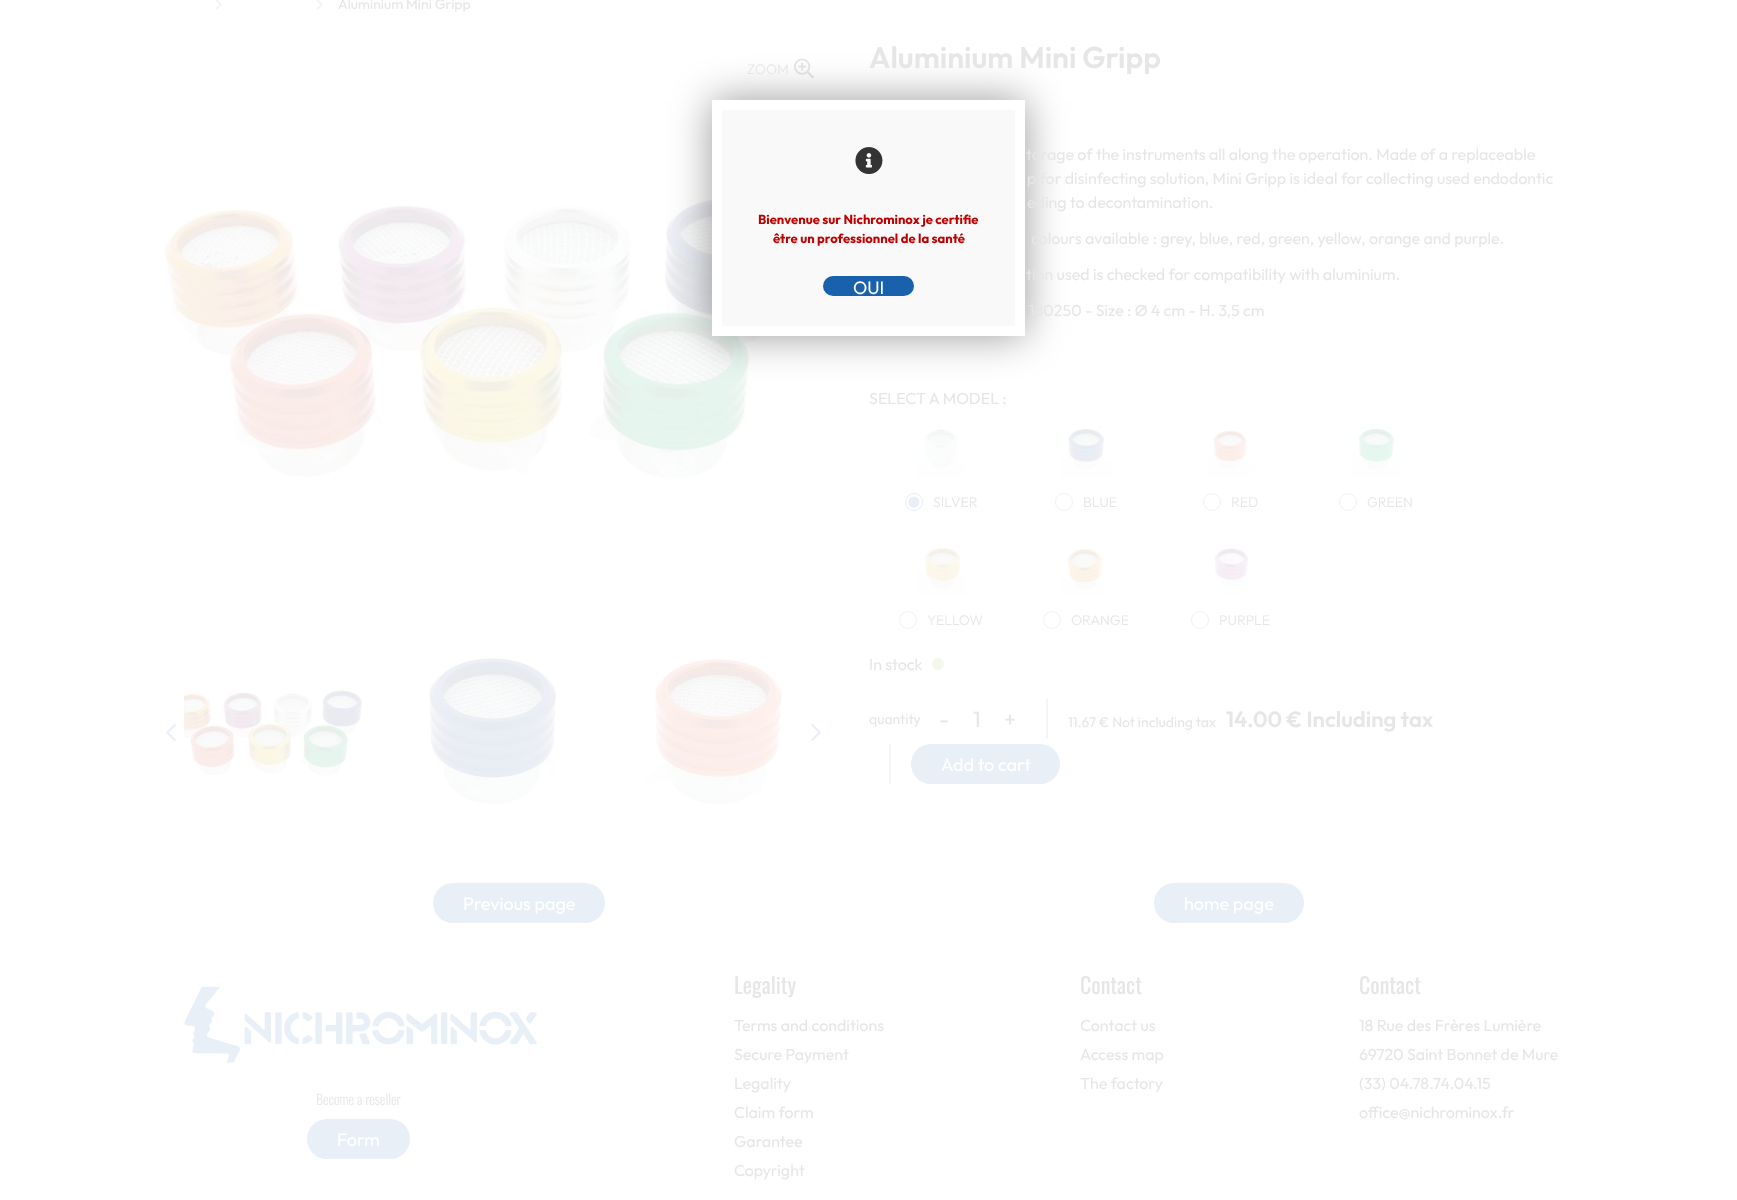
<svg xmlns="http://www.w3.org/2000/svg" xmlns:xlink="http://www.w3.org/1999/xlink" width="1737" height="1200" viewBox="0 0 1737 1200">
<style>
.cls-1{font:14px Outfit;fill:#e6e6e6}
.cls-2{font:300 14px Outfit;fill:#e6e6e6}
.cls-3{font:600 30px Outfit;fill:#e6e6e6}
.cls-4{font:16px Outfit;fill:#e6e6e6}
.cls-5{font:22px Outfit;fill:#e6e6e6}
.cls-6{font:600 22px Outfit;fill:#e6e6e6}
.cls-7{font:18px Outfit;fill:#ffffff}
.cls-8{font:bold 13px Outfit;fill:#bf0000}
.cls-9{font:300 14px Oswald;fill:#e6e6e6}
.cls-10{font:22px Oswald;fill:#e6e6e6}
</style>
<rect width="100%" height="100%" fill="#ffffff"/>
<image xlink:href="image0.png" x="215" y="0" width="7" height="10"/>
<image xlink:href="image0.png" x="316" y="0" width="7" height="10"/>
<image xlink:href="image1.png" x="794" y="58" width="20" height="21"/>
<image xlink:href="image2.png" x="159" y="187" width="652" height="299"/>
<image xlink:href="image3.png" x="184" y="688" width="180" height="88"/>
<image xlink:href="image4.png" x="429" y="658" width="130" height="147"/>
<image xlink:href="image5.png" x="644" y="658" width="139" height="146"/>
<image xlink:href="image6.png" x="166" y="723" width="10" height="19"/>
<image xlink:href="image7.png" x="811" y="723" width="10" height="19"/>
<image xlink:href="image8.png" x="916" y="423" width="50" height="55"/>
<circle fill="none" stroke="#e8eff7" cx="914" cy="502" r="8.5"/>
<circle fill="#e8eff7" cx="914" cy="502" r="5.5"/>
<image xlink:href="image9.png" x="1060" y="423" width="52" height="55"/>
<circle fill="none" stroke="#f1f1f1" cx="1064" cy="502" r="8.5"/>
<image xlink:href="image10.png" x="1207" y="423" width="48" height="55"/>
<circle fill="none" stroke="#f1f1f1" cx="1212" cy="502" r="8.5"/>
<image xlink:href="image11.png" x="1351" y="423" width="50" height="55"/>
<circle fill="none" stroke="#f1f1f1" cx="1348" cy="502" r="8.5"/>
<image xlink:href="image12.png" x="916" y="541" width="50" height="55"/>
<circle fill="none" stroke="#f1f1f1" cx="908" cy="620" r="8.5"/>
<image xlink:href="image13.png" x="1060" y="541" width="52" height="55"/>
<circle fill="none" stroke="#f1f1f1" cx="1052" cy="620" r="8.5"/>
<image xlink:href="image14.png" x="1207" y="543" width="48" height="53"/>
<circle fill="none" stroke="#f1f1f1" cx="1200" cy="620" r="8.5"/>
<circle fill="#f3f9ea" cx="938" cy="664" r="6"/>
<rect fill="#f5f5f5" x="1046" y="699" width="2" height="40"/>
<rect fill="#f5f5f5" x="889" y="744" width="2" height="40"/>
<rect fill="#e8eff7" x="911" y="744" width="149" height="40" rx="20"/>
<rect fill="#e8eff7" x="433" y="883" width="172" height="40" rx="20"/>
<rect fill="#e8eff7" x="1154" y="883" width="150" height="40" rx="20"/>
<rect fill="#000000" fill-opacity="0.4" filter="blur(20px)" x="712" y="100" width="313" height="236"/>
<rect fill="#f9f9f9" stroke="#ffffff" stroke-width="10" x="717" y="105" width="303" height="226"/>
<image xlink:href="image15.png" x="855" y="147" width="28" height="27"/>
<rect fill="#1961ac" x="823" y="276" width="91" height="20" rx="10"/>
<image xlink:href="image16.png" x="184" y="987" width="353" height="76"/>
<rect fill="#e8eff7" x="307" y="1119" width="103" height="40" rx="20"/>
<text class="cls-1" x="338" y="9">Aluminium Mini Gripp</text>
<text class="cls-2" x="747" y="74">ZOOM</text>
<text class="cls-3" x="869" y="68">Aluminium Mini Gripp</text>
<text class="cls-4" x="1026" y="160">torage of the instruments all along the operation. Made of a replaceable</text>
<text class="cls-4"><tspan x="1027" y="184">p for disinfecting solution, Mini Gripp is ideal for collecting used endodontic</tspan><tspan x="1027" y="208">eding to decontamination.</tspan></text>
<text class="cls-4" x="1031" y="244">colours available : grey, blue, red, green, yellow, orange and purple.</text>
<text class="cls-4" x="1026" y="280">tion used is checked for compatibility with aluminium.</text>
<text class="cls-4" x="1029" y="316">180250 - Size : Ø 4 cm - H. 3,5 cm</text>
<text class="cls-4" x="869" y="404">SELECT A MODEL :</text>
<text class="cls-2" x="933" y="507">SILVER</text>
<text class="cls-2" x="1083" y="507">BLUE</text>
<text class="cls-2" x="1231" y="507">RED</text>
<text class="cls-2" x="1367" y="507">GREEN</text>
<text class="cls-2" x="927" y="625">YELLOW</text>
<text class="cls-2" x="1071" y="625">ORANGE</text>
<text class="cls-2" x="1219" y="625">PURPLE</text>
<text class="cls-4" x="869" y="670">In stock</text>
<text class="cls-1" x="869" y="724">quantity</text>
<text class="cls-5" x="939" y="727">-</text>
<text class="cls-5" x="973" y="727">1</text>
<text class="cls-5" x="1004" y="727">+</text>
<text class="cls-1" x="1068" y="727">11.67 € Not including tax</text>
<text class="cls-6" x="1226" y="727">14</text>
<text class="cls-6" x="1247" y="727">.00 € Including tax</text>
<text class="cls-7" x="941" y="771">Add to cart</text>
<text class="cls-7" x="463" y="910">Previous page</text>
<text class="cls-7" x="1184" y="910">home page</text>
<text class="cls-8" x="758" y="224">Bienvenue sur Nichrominox je certifie</text>
<text class="cls-8" x="773" y="243">être un professionnel de la santé</text>
<text class="cls-7" x="853" y="294">OUI</text>
<text class="cls-9" x="316" y="1105">Become a reseller</text>
<text class="cls-7" x="337" y="1146">Form</text>
<text class="cls-10" x="734" y="994">Legality</text>
<text class="cls-4"><tspan x="734" y="1031">Terms and conditions</tspan><tspan x="734" y="1060">Secure Payment</tspan><tspan x="734" y="1089">Legality</tspan><tspan x="734" y="1118">Claim form</tspan><tspan x="734" y="1147">Garantee</tspan><tspan x="734" y="1176">Copyright</tspan></text>
<text class="cls-10" x="1080" y="994">Contact</text>
<text class="cls-4"><tspan x="1080" y="1031">Contact us</tspan><tspan x="1080" y="1060">Access map</tspan><tspan x="1080" y="1089">The factory</tspan></text>
<text class="cls-10" x="1359" y="994">Contact</text>
<text class="cls-4"><tspan x="1359" y="1031">18 Rue des Frères Lumière</tspan><tspan x="1359" y="1060">69720 Saint Bonnet de Mure</tspan><tspan x="1359" y="1089">(33) 04.78.74.04.15</tspan><tspan x="1359" y="1118">office@nichrominox.fr</tspan></text>
</svg>
